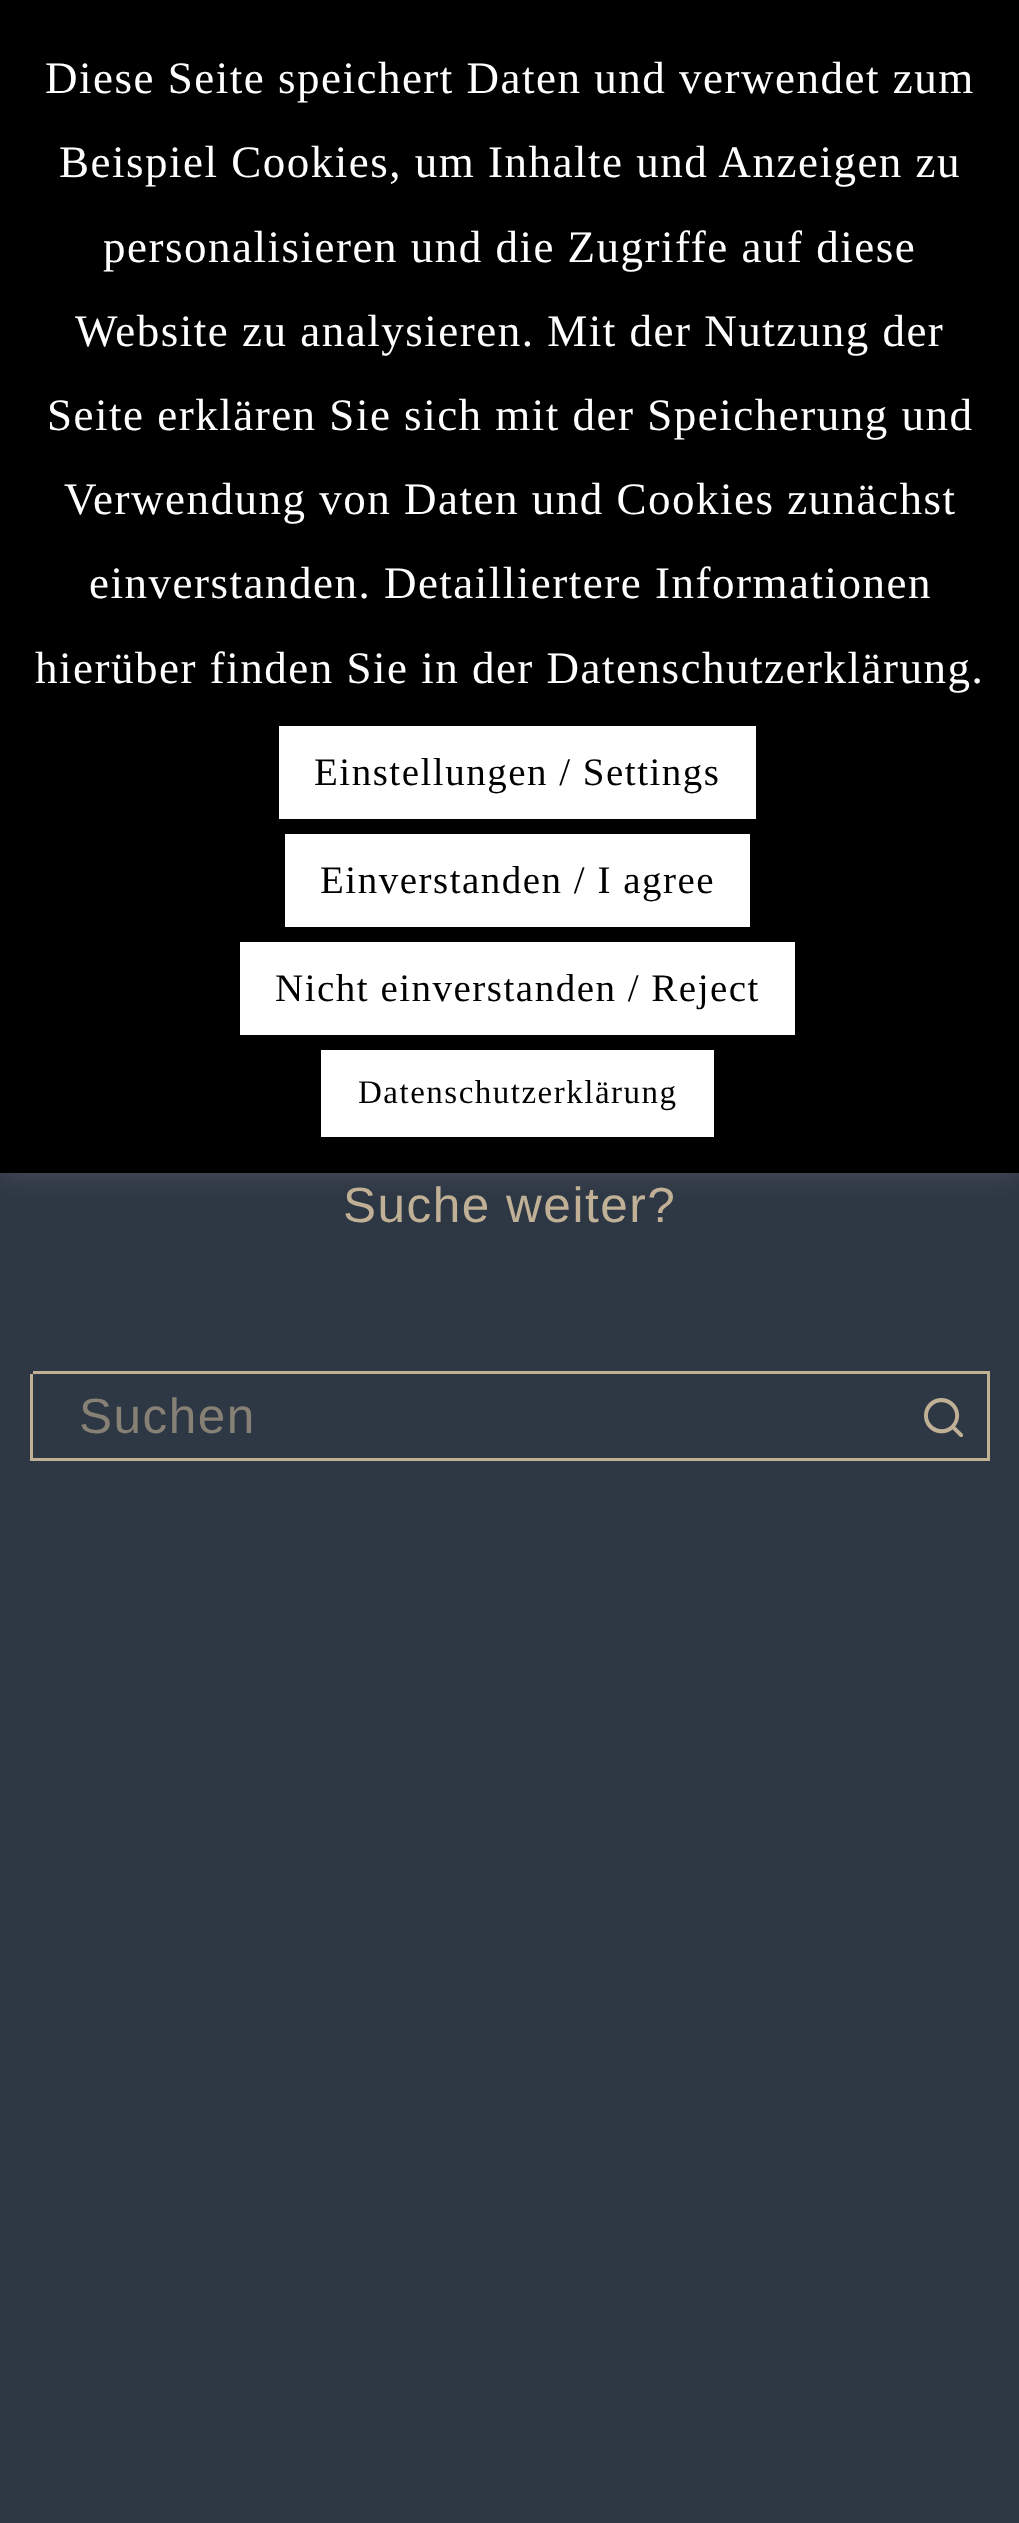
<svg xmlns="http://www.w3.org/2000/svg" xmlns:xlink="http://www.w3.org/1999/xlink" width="1019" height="2523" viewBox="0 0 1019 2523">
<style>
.cls-1{font:45px Liberation Serif;letter-spacing:1.5px;fill:#ffffff}
.cls-2{font:39px Liberation Serif;letter-spacing:1.5px;fill:#000000}
.cls-3{font:33px Liberation Serif;letter-spacing:1.5px;fill:#000000}
.cls-4{font:49.5px Liberation Sans;letter-spacing:1.5px;fill:#c0b096}
.cls-5{font:49.5px Liberation Sans;letter-spacing:1.5px;fill:#868075}
</style>
<rect width="100%" height="100%" fill="#2e3744"/>
<rect fill="#acabab" fill-opacity="0.3" filter="blur(15px)" x="0" y="-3" width="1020" height="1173"/>
<rect fill="#000000" x="0" y="0" width="1019" height="1173"/>
<rect fill="#ffffff" x="279" y="726" width="477" height="93"/>
<rect fill="#ffffff" x="285" y="834" width="465" height="93"/>
<rect fill="#ffffff" x="240" y="942" width="555" height="93"/>
<rect fill="#ffffff" x="321" y="1050" width="393" height="87"/>
<rect fill="#c0b096" x="33" y="1371" width="957" height="3"/>
<rect fill="#c0b096" x="33" y="1458" width="867" height="3"/>
<rect fill="#c0b096" x="30" y="1374" width="3" height="87"/>
<rect fill="#c0b096" x="987" y="1374" width="3" height="87"/>
<rect fill="#c0b096" x="900" y="1458" width="90" height="3"/>
<image xlink:href="image0.png" x="924" y="1398" width="39" height="39"/>
<text class="cls-1" x="45" y="93">Diese Seite speichert Daten und verwendet zum</text>
<text class="cls-1" x="59" y="177">Beispiel Cookies, um Inhalte und Anzeigen zu</text>
<text class="cls-1" x="103" y="262">personalisieren und die Zugriffe auf diese</text>
<text class="cls-1" x="75" y="346">Website zu analysieren. Mit der Nutzung der</text>
<text class="cls-1" x="47" y="430">Seite erklären Sie sich mit der Speicherung und</text>
<text class="cls-1" x="64" y="514">Verwendung von Daten und Cookies zunächst</text>
<text class="cls-1" x="89" y="598">einverstanden. Detailliertere Informationen</text>
<text class="cls-1" x="35" y="683">hierüber finden Sie in der Datenschutzerklärung.</text>
<text class="cls-2" x="314" y="785">Einstellungen / Settings</text>
<text class="cls-2" x="320" y="893">Einverstanden / I agree</text>
<text class="cls-2" x="275" y="1001">Nicht einverstanden / Reject</text>
<text class="cls-3" x="358" y="1103">Datenschutzerklärung</text>
<text class="cls-4" x="343" y="1222">Suche weiter?</text>
<text class="cls-5" x="79" y="1433">Suchen</text>
</svg>
